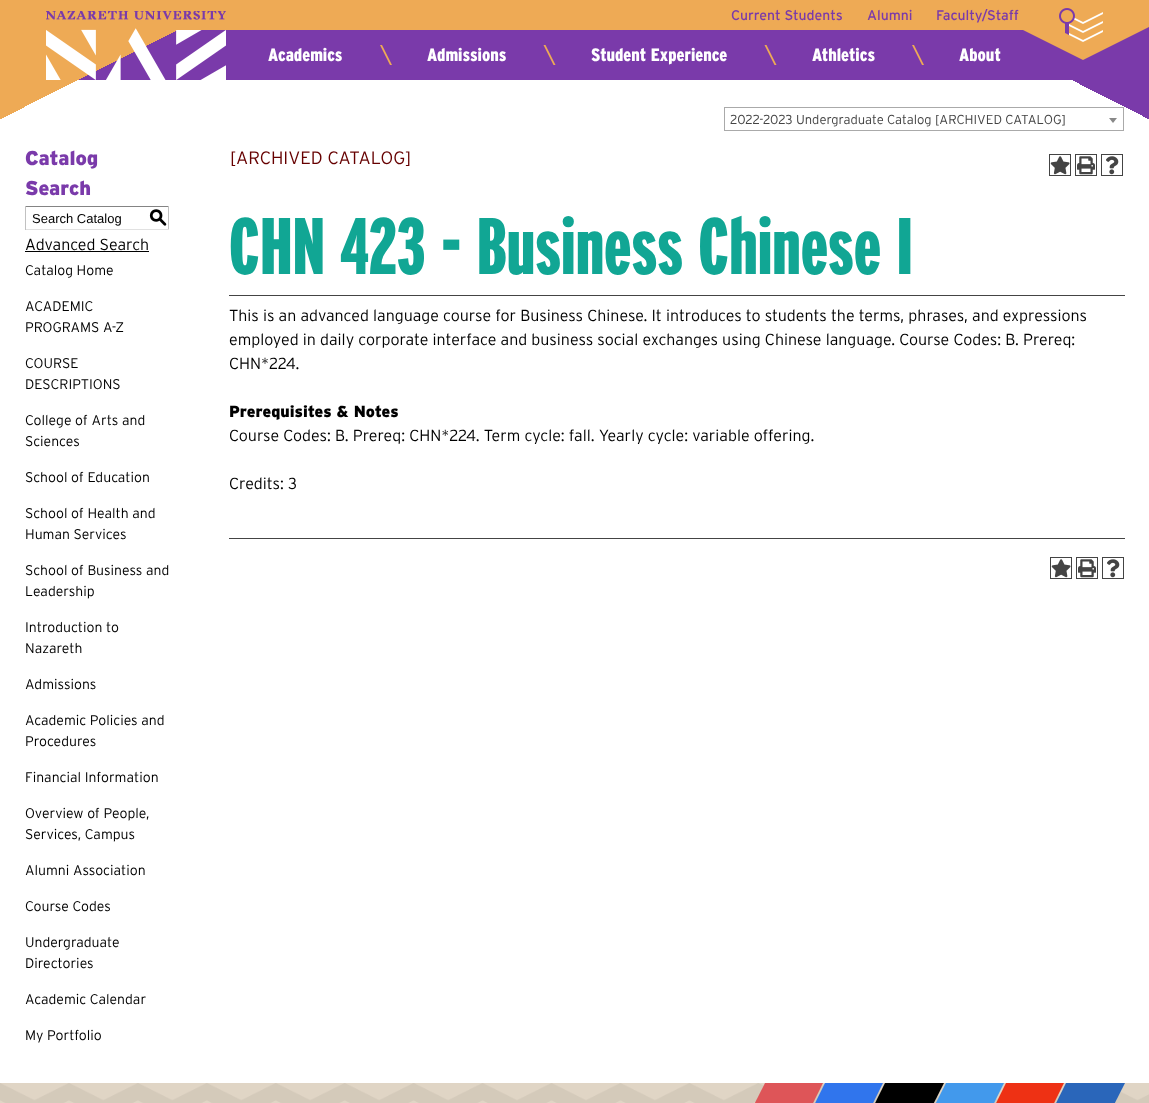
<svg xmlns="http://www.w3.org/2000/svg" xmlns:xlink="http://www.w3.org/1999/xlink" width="1149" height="1103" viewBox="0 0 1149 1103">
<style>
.cls-1{font:14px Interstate;fill:#7a3aaa}
.cls-2{font:900 18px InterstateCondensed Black;fill:#ffffff}
.cls-3{font:300 13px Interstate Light;fill:#444444}
.cls-4{font:900 20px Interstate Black;fill:#7a3aaa}
.cls-5{font:13px Liberation Sans;fill:#000000}
.cls-6{font:500 18px 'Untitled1';fill:#000000}
.cls-7{font:300 16px Interstate Light;fill:#000000}
.cls-8{font:300 14px Interstate Light;fill:#000000}
.cls-9{font:300 18px Interstate Light;fill:#660000}
.cls-10{font:900 80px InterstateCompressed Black;fill:#11a694}
.cls-11{font:900 16px Interstate Black;fill:#000000}
</style>
<defs>
<linearGradient id="g1" gradientUnits="userSpaceOnUse" x1="71" y1="-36" x2="167" y2="155"><stop offset="0" stop-color="#eeaa55"/><stop offset="0.5" stop-color="#eeaa55"/><stop offset="0.5" stop-color="#eeaa55" stop-opacity="0"/><stop offset="1" stop-color="#000000" stop-opacity="0"/></linearGradient>
<linearGradient id="g2" gradientUnits="userSpaceOnUse" x1="1126" y1="68" x2="1094" y2="131"><stop offset="0" stop-color="#7a3aaa"/><stop offset="0.5" stop-color="#7a3aaa"/><stop offset="0.5" stop-color="#7a3aaa" stop-opacity="0"/><stop offset="1" stop-color="#000000" stop-opacity="0"/></linearGradient>
</defs>
<rect width="100%" height="100%" fill="#ffffff"/>
<rect fill="#7a3aaa" x="79" y="27" width="1070" height="53"/>
<rect fill="url(#g1)" x="0" y="0" width="177" height="119"/>
<path fill="#eeaa55" d="M963 0H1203L1083 60Z"/>
<rect fill="#eeaa55" x="177" y="0" width="846" height="30"/>
<image xlink:href="image0.png" x="46" y="11" width="180" height="69"/>
<image xlink:href="image1.png" x="1059" y="8" width="44" height="34"/>
<path fill="#eeaa55" d="M380 45H382L392 65H390Z"/>
<path fill="#eeaa55" d="M543.5 45H545.5L555.5 65H553.5Z"/>
<path fill="#eeaa55" d="M764.5 45H766.5L776.5 65H774.5Z"/>
<path fill="#eeaa55" d="M912 45H914L924 65H922Z"/>
<rect fill="none" stroke="#aaaaaa" x="724.5" y="107.5" width="399" height="23"/>
<path fill="#888888" d="M1109 118H1117L1113 123Z"/>
<rect fill="url(#g2)" x="1073" y="80" width="76" height="39"/>
<rect fill="#848484" x="25" y="206" width="144" height="1"/>
<rect fill="#c1c1c1" x="168" y="206" width="1" height="24"/>
<rect fill="#e1e1e1" x="25" y="229" width="144" height="1"/>
<rect fill="#c1c1c1" x="25" y="206" width="1" height="24"/>
<rect fill="#000000" x="25" y="251" width="124" height="1"/>
<rect fill="none" stroke="#444444" x="1049.5" y="154.5" width="21" height="21"/>
<image xlink:href="image2.png" x="1050" y="156" width="20" height="19"/>
<rect fill="none" stroke="#444444" x="1075.5" y="154.5" width="21" height="21"/>
<image xlink:href="image3.png" x="1077" y="156" width="18" height="19"/>
<rect fill="none" stroke="#444444" x="1101.5" y="154.5" width="21" height="21"/>
<image xlink:href="image4.png" x="1106" y="156" width="13" height="19"/>
<rect fill="#444444" x="229" y="295" width="896" height="1"/>
<rect fill="#444444" x="229" y="538" width="896" height="1"/>
<rect fill="none" stroke="#444444" x="1050.5" y="557.5" width="21" height="21"/>
<image xlink:href="image2.png" x="1051" y="559" width="20" height="19"/>
<rect fill="none" stroke="#444444" x="1076.5" y="557.5" width="21" height="21"/>
<image xlink:href="image3.png" x="1078" y="559" width="18" height="19"/>
<rect fill="none" stroke="#444444" x="1102.5" y="557.5" width="21" height="21"/>
<image xlink:href="image4.png" x="1107" y="559" width="13" height="19"/>
<rect fill="#e0d5c5" x="0" y="1083" width="1149" height="20"/>
<image xlink:href="image5.png" x="0" y="1083" width="1149" height="20"/>
<path fill="#de5558" d="M765 1083H823L780 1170H721Z"/>
<path fill="#3075ed" d="M825 1083H883L840 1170H782Z"/>
<path fill="#000000" d="M885 1083H944L900 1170H842Z"/>
<path fill="#4299ec" d="M946 1083H1004L961 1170H902Z"/>
<path fill="#ee3114" d="M1006 1083H1064L1021 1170H963Z"/>
<path fill="#2a66ba" d="M1066 1083H1125L1081 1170H1023Z"/>
<text class="cls-1" x="731" y="20">Current Students</text>
<text class="cls-1" x="867" y="20">Alumni</text>
<text class="cls-1" x="936" y="20">Faculty/Staff</text>
<text class="cls-2" x="268" y="61">Academics</text>
<text class="cls-2" x="427" y="61">Admissions</text>
<text class="cls-2" x="591" y="61">Student Experience</text>
<text class="cls-2" x="812" y="61">Athletics</text>
<text class="cls-2" x="959" y="61">About</text>
<text class="cls-3" x="730" y="124">2022-2023 Undergraduate Catalog [ARCHIVED CATALOG]</text>
<text class="cls-4"><tspan x="25" y="165">Catalog</tspan><tspan x="25" y="195">Search</tspan></text>
<text class="cls-5" x="32" y="223">Search Catalog</text>
<text class="cls-6" x="149" y="223">S</text>
<text class="cls-7" x="25" y="250">Advanced Search</text>
<text class="cls-8" x="25" y="275">Catalog Home</text>
<text class="cls-8"><tspan x="25" y="311">ACADEMIC</tspan><tspan x="25" y="332">PROGRAMS A-Z</tspan></text>
<text class="cls-8"><tspan x="25" y="368">COURSE</tspan><tspan x="25" y="389">DESCRIPTIONS</tspan></text>
<text class="cls-8"><tspan x="25" y="425">College of Arts and</tspan><tspan x="25" y="446">Sciences</tspan></text>
<text class="cls-8" x="25" y="482">School of Education</text>
<text class="cls-8"><tspan x="25" y="518">School of Health and</tspan><tspan x="25" y="539">Human Services</tspan></text>
<text class="cls-8"><tspan x="25" y="575">School of Business and</tspan><tspan x="25" y="596">Leadership</tspan></text>
<text class="cls-8"><tspan x="25" y="632">Introduction to</tspan><tspan x="25" y="653">Nazareth</tspan></text>
<text class="cls-8" x="25" y="689">Admissions</text>
<text class="cls-8"><tspan x="25" y="725">Academic Policies and</tspan><tspan x="25" y="746">Procedures</tspan></text>
<text class="cls-8" x="25" y="782">Financial Information</text>
<text class="cls-8"><tspan x="25" y="818">Overview of People,</tspan><tspan x="25" y="839">Services, Campus</tspan></text>
<text class="cls-8" x="25" y="875">Alumni Association</text>
<text class="cls-8" x="25" y="911">Course Codes</text>
<text class="cls-8"><tspan x="25" y="947">Undergraduate</tspan><tspan x="25" y="968">Directories</tspan></text>
<text class="cls-8" x="25" y="1004">Academic Calendar</text>
<text class="cls-8" x="25" y="1040">My Portfolio</text>
<text class="cls-9" x="230" y="164">[ARCHIVED CATALOG]</text>
<text class="cls-10" x="229" y="274">CHN 423 - Business Chinese I</text>
<text class="cls-7"><tspan x="229" y="321">This is an advanced language course for Business Chinese. It introduces to students the terms, phrases, and expressions</tspan><tspan x="229" y="345">employed in daily corporate interface and business social exchanges using Chinese language. Course Codes: B. Prereq:</tspan><tspan x="229" y="369">CHN*224.</tspan></text>
<text class="cls-11" x="229" y="417">Prerequisites &amp; Notes</text>
<text class="cls-7" x="229" y="441">Course Codes: B. Prereq: CHN*224. Term cycle: fall. Yearly cycle: variable offering.</text>
<text class="cls-7" x="229" y="489">Credits: 3</text>
</svg>
